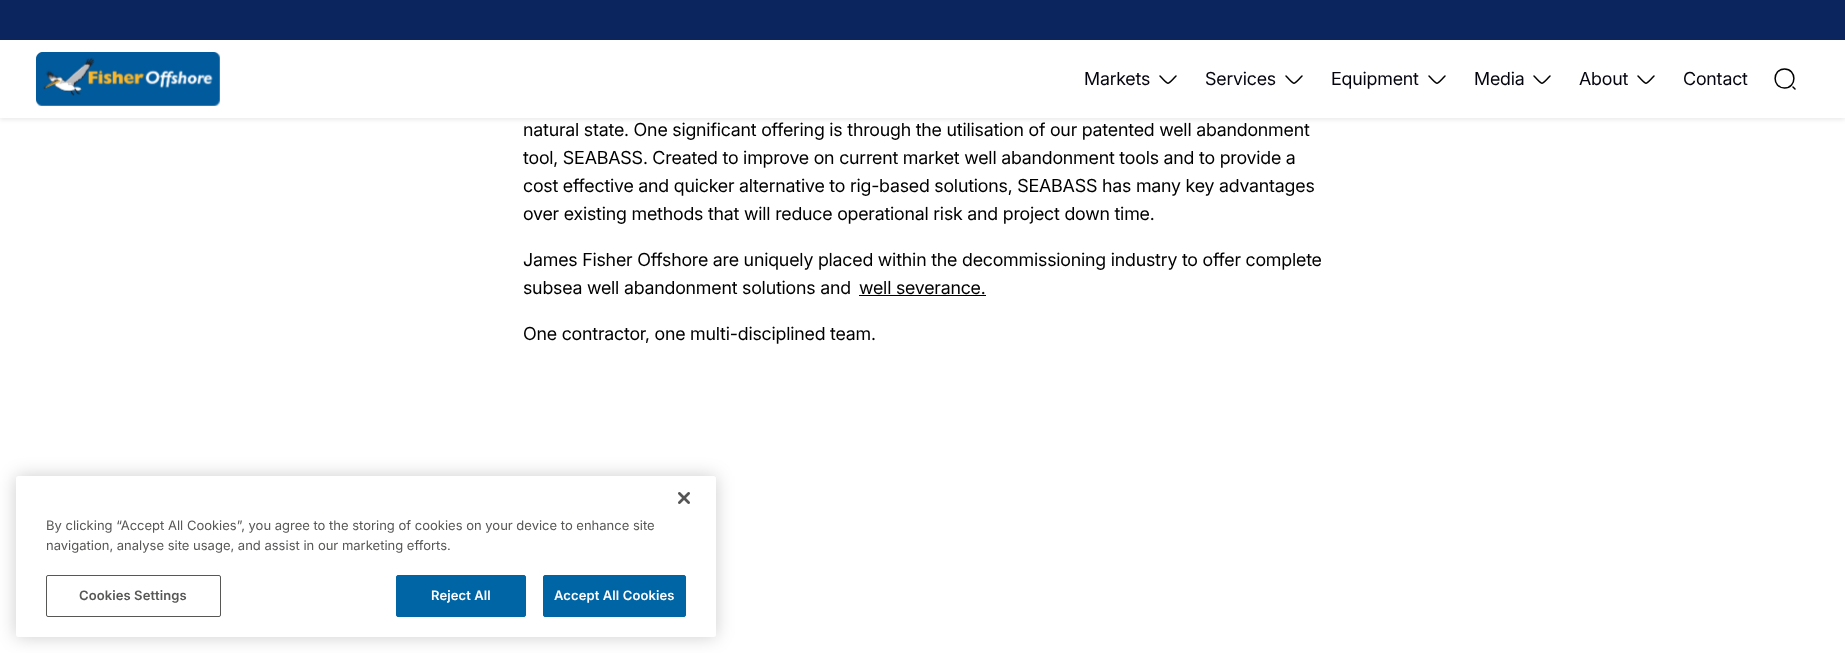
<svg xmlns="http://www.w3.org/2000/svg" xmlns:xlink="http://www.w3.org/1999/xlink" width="1845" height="653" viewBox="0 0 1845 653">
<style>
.cls-1{font:18px Inter;letter-spacing:-0.18px;fill:#04040f}
.cls-2{font:18px Inter;letter-spacing:-0.18px;fill:#000000}
.cls-3{font:13px 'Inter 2';fill:#575756}
.cls-4{font:600 13px Inter;letter-spacing:0.1px;fill:#575756}
.cls-5{font:600 13px Inter;letter-spacing:0.1px;fill:#ffffff}
</style>
<rect width="100%" height="100%" fill="#ffffff"/>
<rect fill="#000000" fill-opacity="0.08" filter="blur(2px)" x="0" y="2" width="1845" height="118"/>
<rect fill="#0b255f" x="0" y="0" width="1845" height="40"/>
<rect fill="#ffffff" x="0" y="40" width="1845" height="78"/>
<image xlink:href="image0.png" x="36" y="52" width="184" height="54"/>
<path fill="none" stroke="#000000" stroke-width="1.5" stroke-linecap="round" stroke-linejoin="round" d="M1176 76C1166.5 85.5 1169.5 85.5 1160 76"/>
<path fill="none" stroke="#000000" stroke-width="1.5" stroke-linecap="round" stroke-linejoin="round" d="M1302 76C1292.5 85.5 1295.5 85.5 1286 76"/>
<path fill="none" stroke="#000000" stroke-width="1.5" stroke-linecap="round" stroke-linejoin="round" d="M1445 76C1435.5 85.5 1438.5 85.5 1429 76"/>
<path fill="none" stroke="#000000" stroke-width="1.5" stroke-linecap="round" stroke-linejoin="round" d="M1550 76C1540.5 85.5 1543.5 85.5 1534 76"/>
<path fill="none" stroke="#000000" stroke-width="1.5" stroke-linecap="round" stroke-linejoin="round" d="M1654 76C1644.5 85.5 1647.5 85.5 1638 76"/>
<path fill="none" stroke="#000000" stroke-width="1.5" stroke-linecap="round" stroke-linejoin="round" d="M1784.5 88C1797 88 1797 69 1784.5 69C1772 69 1772 88 1784.5 88ZM1795 89L1793 87"/>
<rect fill="#000000" x="859" y="295" width="127" height="1"/>
<rect fill="#000000" fill-opacity="0.2" filter="blur(9px)" x="16" y="476" width="700" height="161" rx="2.5"/>
<rect fill="#ffffff" x="16" y="476" width="700" height="161" rx="2.5"/>
<image xlink:href="image1.png" x="678" y="492" width="12" height="12"/>
<rect fill="none" stroke="#575756" x="46.5" y="575.5" width="174" height="41" rx="1.5"/>
<rect fill="#0065a4" stroke="#0065a4" x="396.5" y="575.5" width="129" height="41" rx="1.5"/>
<rect fill="#0065a4" stroke="#0065a4" x="543.5" y="575.5" width="142" height="41" rx="1.5"/>
<text class="cls-1" x="1084" y="85">Markets</text>
<text class="cls-1" x="1205" y="85">Services</text>
<text class="cls-1" x="1331" y="85">Equipment</text>
<text class="cls-1" x="1474" y="85">Media</text>
<text class="cls-1" x="1579" y="85">About</text>
<text class="cls-1" x="1683" y="85">Contact</text>
<text class="cls-2"><tspan x="523" y="136">natural state. One significant offering is through the utilisation of our patented well abandonment</tspan><tspan x="523" y="164">tool, SEABASS. Created to improve on current market well abandonment tools and to provide a</tspan><tspan x="523" y="192">cost effective and quicker alternative to rig-based solutions, SEABASS has many key advantages</tspan><tspan x="523" y="220">over existing methods that will reduce operational risk and project down time.</tspan></text>
<text class="cls-2"><tspan x="523" y="266">James Fisher Offshore are uniquely placed within the decommissioning industry to offer complete</tspan><tspan x="523" y="294">subsea well abandonment solutions and</tspan></text>
<text class="cls-2" x="859" y="294">well severance.</text>
<text class="cls-2" x="523" y="340">One contractor, one multi-disciplined team.</text>
<text class="cls-3"><tspan x="46" y="530">By clicking “Accept All Cookies”, you agree to the storing of cookies on your device to enhance site</tspan><tspan x="46" y="550">navigation, analyse site usage, and assist in our marketing efforts.</tspan></text>
<text class="cls-4" x="79" y="600">Cookies Settings</text>
<text class="cls-5" x="431" y="600">Reject All</text>
<text class="cls-5" x="554" y="600">Accept All Cookies</text>
</svg>
